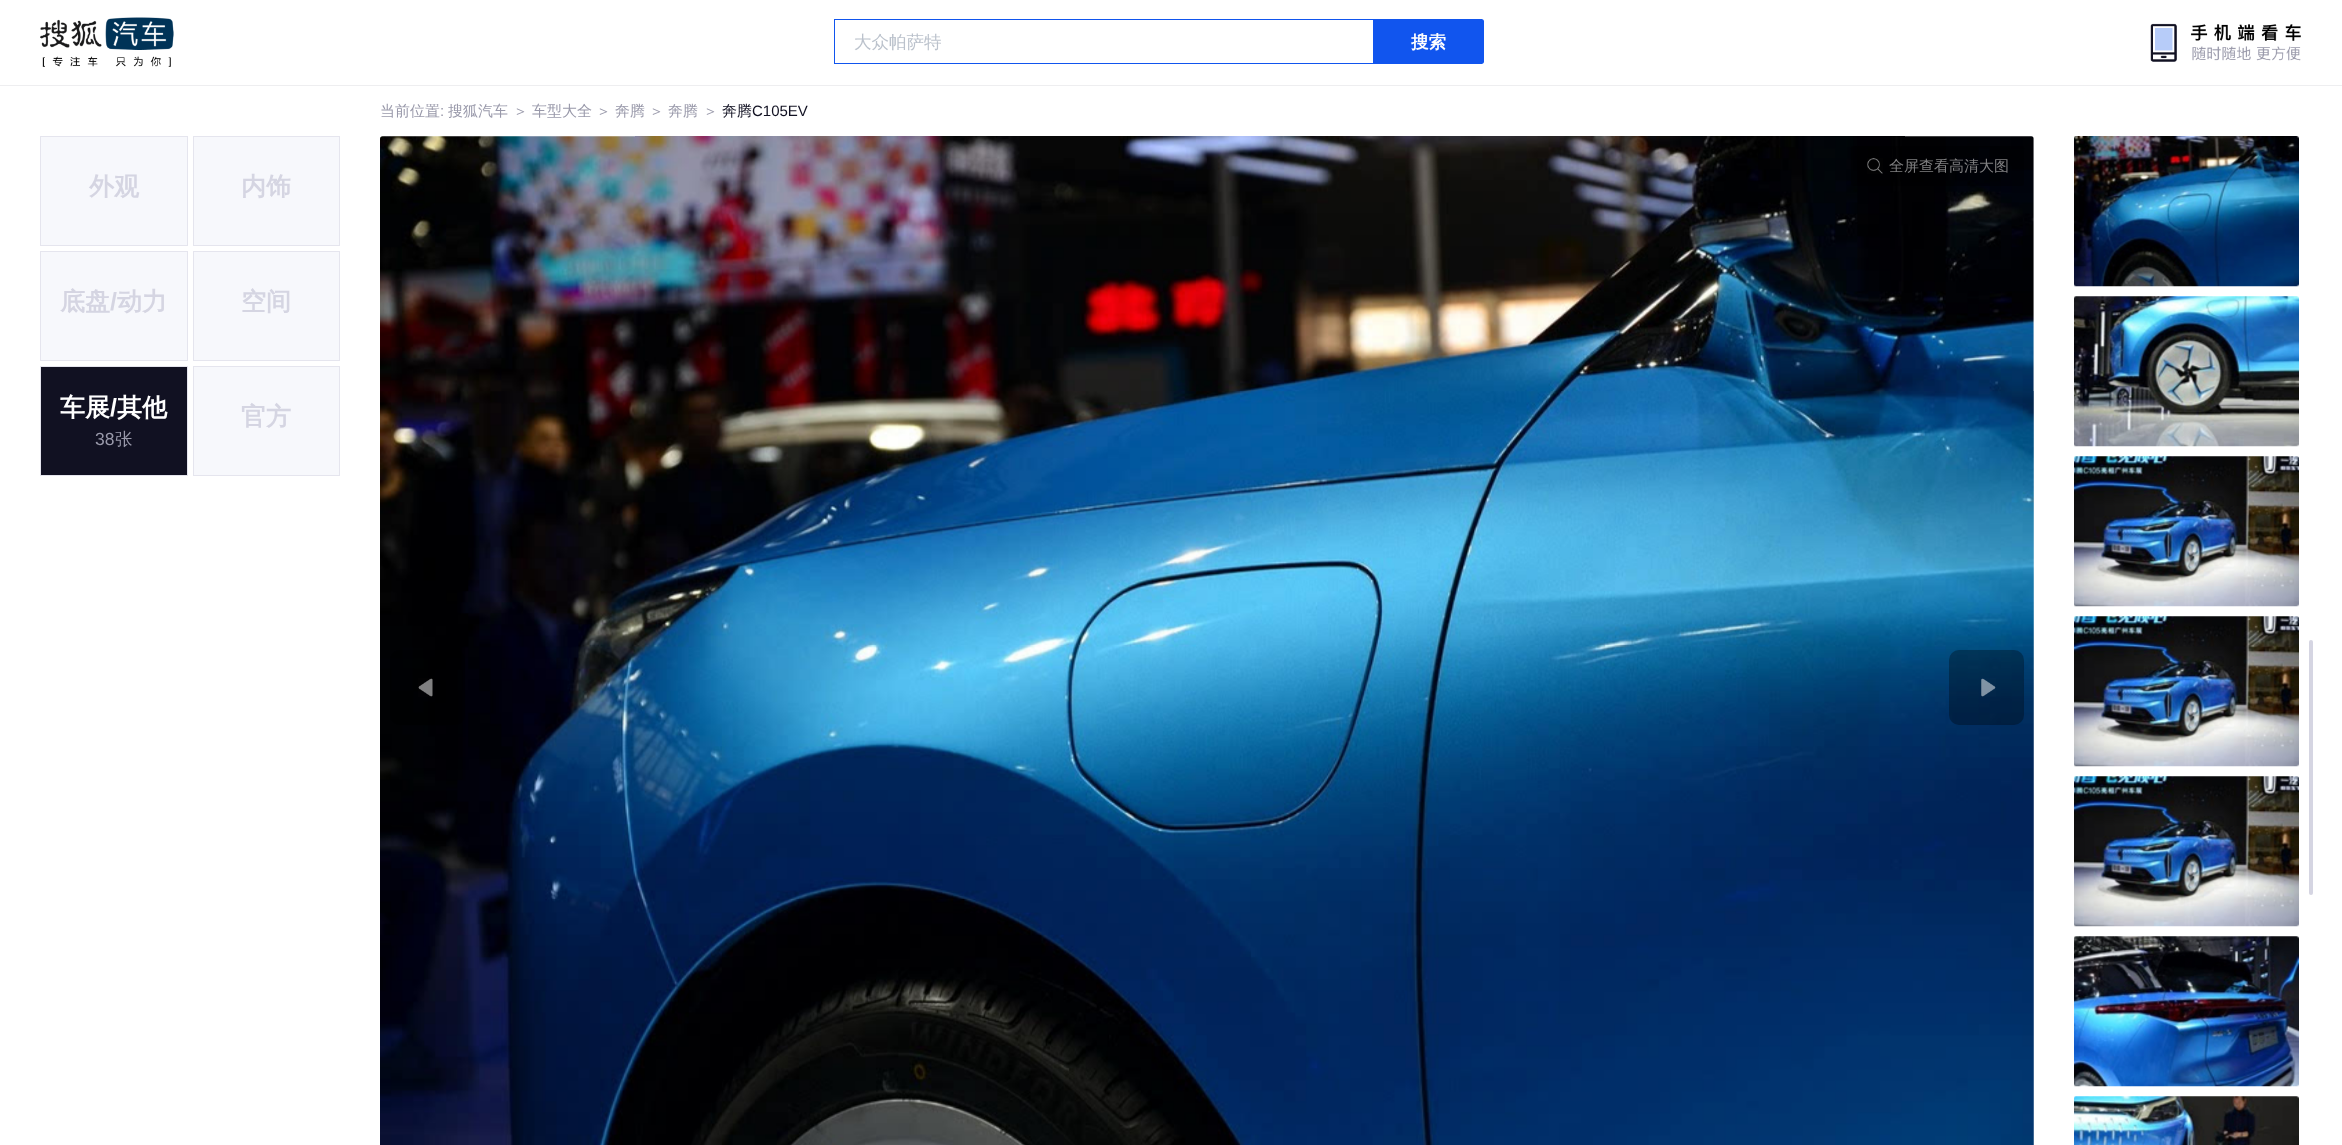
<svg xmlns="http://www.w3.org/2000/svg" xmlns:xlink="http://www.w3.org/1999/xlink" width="2342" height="1145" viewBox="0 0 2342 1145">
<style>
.cls-1{font:500 17.5px WenQuanYi Zen Hei;fill:#bbc2cc}
.cls-2{font:bold 17.5px WenQuanYi Zen Hei;fill:#ffffff}
.cls-3{font:500 15px WenQuanYi Zen Hei;fill:#9999aa}
.cls-4{font:15px Liberation Sans;fill:#9999aa}
.cls-5{font:500 15px WenQuanYi Zen Hei;fill:#111122}
.cls-6{font:15px Liberation Sans;fill:#111122}
.cls-7{font:500 15px WenQuanYi Zen Hei;fill:#808082}
.cls-8{font:bold 25px WenQuanYi Zen Hei;fill:#d5d5e2}
.cls-9{font:bold 25px Liberation Sans;fill:#d5d5e2}
.cls-10{font:bold 25px WenQuanYi Zen Hei;fill:#ffffff}
.cls-11{font:bold 25px Liberation Sans;fill:#ffffff}
.cls-12{font:17.5px Liberation Sans;fill:#9999aa}
.cls-13{font:500 17.5px WenQuanYi Zen Hei;fill:#9999aa}
</style>
<rect width="100%" height="100%" fill="#ffffff"/>
<rect fill="#eeeef0" x="0" y="85" width="2342" height="1"/>
<image xlink:href="image0.png" x="40" y="17" width="134" height="50"/>
<rect fill="none" stroke="#1155ee" x="834.5" y="19.5" width="539" height="44"/>
<path fill="#1155ee" d="M1374 19H1481.5C1483 19 1484 20 1484 21.5V61.5C1484 63 1483 64 1481.5 64H1374Z"/>
<image xlink:href="image1.png" x="2150" y="23" width="151" height="39"/>
<image xlink:href="image2.png" x="380" y="136" width="1654" height="1009"/>
<rect fill="#000000" fill-opacity="0.3" x="1851" y="146" width="173" height="40" rx="2.5"/>
<image xlink:href="image3.png" x="1867" y="158" width="16" height="16"/>
<rect fill="#000000" fill-opacity="0.3" x="390" y="650" width="75" height="75" rx="10"/>
<image xlink:href="image4.png" x="418" y="678" width="15" height="19"/>
<rect fill="#000000" fill-opacity="0.3" x="1949" y="650" width="75" height="75" rx="10"/>
<image xlink:href="image5.png" x="1981" y="678" width="15" height="19"/>
<image xlink:href="image6.png" x="2074" y="136" width="225" height="151"/>
<image xlink:href="image7.png" x="2074" y="296" width="225" height="151"/>
<image xlink:href="image8.png" x="2074" y="456" width="225" height="151"/>
<image xlink:href="image9.png" x="2074" y="616" width="225" height="151"/>
<image xlink:href="image8.png" x="2074" y="776" width="225" height="151"/>
<image xlink:href="image10.png" x="2074" y="936" width="225" height="151"/>
<image xlink:href="image11.png" x="2074" y="1096" width="225" height="49"/>
<rect fill="#d5d5e2" x="2309" y="640" width="4" height="255" rx="2"/>
<rect fill="#f7f8fc" stroke="#e5e5ee" x="40.5" y="136.5" width="147" height="109"/>
<rect fill="#f7f8fc" stroke="#e5e5ee" x="193.5" y="136.5" width="146" height="109"/>
<rect fill="#f7f8fc" stroke="#e5e5ee" x="40.5" y="251.5" width="147" height="109"/>
<rect fill="#f7f8fc" stroke="#e5e5ee" x="193.5" y="251.5" width="146" height="109"/>
<rect fill="#111122" stroke="#e5e5ee" x="40.5" y="366.5" width="147" height="109"/>
<rect fill="#f7f8fc" stroke="#e5e5ee" x="193.5" y="366.5" width="146" height="109"/>
<text class="cls-1" x="854" y="48">大众帕萨特</text>
<text class="cls-2" x="1411" y="48">搜索</text>
<text class="cls-3" x="380" y="116">当前位置</text>
<text class="cls-4" x="440" y="116">:</text>
<text class="cls-3" x="448" y="116">搜狐汽车</text>
<text class="cls-3" x="513" y="116">＞</text>
<text class="cls-3" x="532" y="116">车型大全</text>
<text class="cls-3" x="596" y="116">＞</text>
<text class="cls-3" x="615" y="116">奔腾</text>
<text class="cls-3" x="649" y="116">＞</text>
<text class="cls-3" x="668" y="116">奔腾</text>
<text class="cls-3" x="703" y="116">＞</text>
<text class="cls-5" x="722" y="116">奔腾</text>
<text class="cls-6" x="752" y="116">C105EV</text>
<text class="cls-7" x="1889" y="171">全屏查看高清大图</text>
<text class="cls-8" x="89" y="195">外观</text>
<text class="cls-8" x="241" y="195">内饰</text>
<text class="cls-8" x="60" y="310">底盘</text>
<text class="cls-9" x="110" y="310">/</text>
<text class="cls-8" x="117" y="310">动力</text>
<text class="cls-8" x="241" y="310">空间</text>
<text class="cls-10" x="60" y="416">车展</text>
<text class="cls-11" x="110" y="416">/</text>
<text class="cls-10" x="117" y="416">其他</text>
<text class="cls-12" x="95" y="445">38</text>
<text class="cls-13" x="115" y="445">张</text>
<text class="cls-8" x="241" y="425">官方</text>
</svg>
